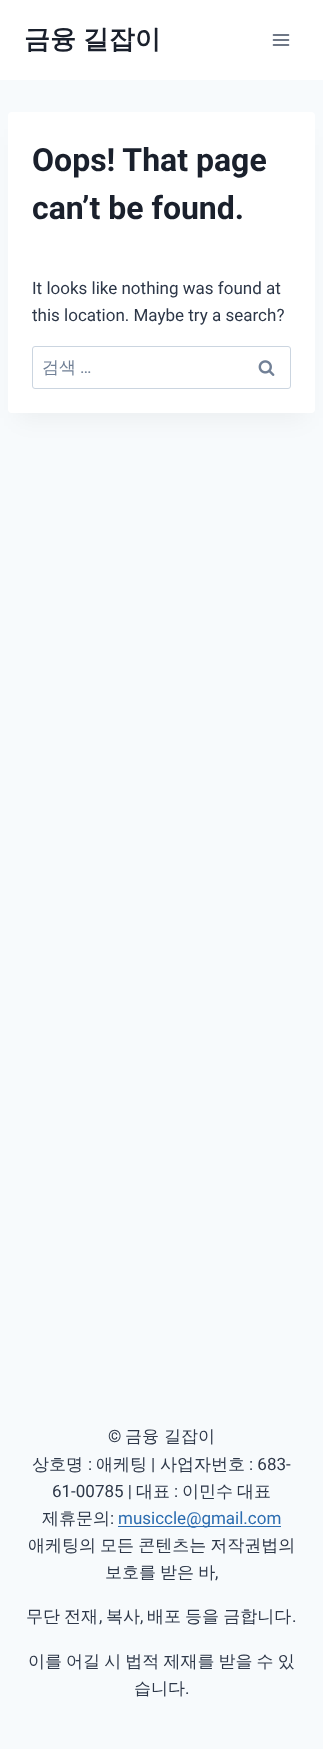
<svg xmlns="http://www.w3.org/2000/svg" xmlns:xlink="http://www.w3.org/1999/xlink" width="323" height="1749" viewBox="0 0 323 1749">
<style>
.cls-1{font:bold 26px WenQuanYi Zen Hei;fill:#1a202c}
.cls-2{font:bold 32px Roboto;fill:#1a202c}
.cls-3{font:17px Roboto;fill:#2d3748}
.cls-4{font:500 17px WenQuanYi Zen Hei;fill:#718096}
.cls-5{font:17px Roboto;fill:#718096}
.cls-6{font:500 17px WenQuanYi Zen Hei;fill:#2d3748}
.cls-7{font:17px Roboto;fill:#2b6cb0}
</style>
<rect width="100%" height="100%" fill="#f7fafc"/>
<rect fill="#ffffff" x="0" y="0" width="323" height="80"/>
<image xlink:href="image0.png" x="272" y="34" width="18" height="12"/>
<rect fill="#000000" fill-opacity="0.05" filter="blur(12.5px)" x="18" y="137" width="287" height="281"/>
<rect fill="#ffffff" x="8" y="112" width="307" height="301" rx="4"/>
<rect fill="none" stroke="#cbd5e0" x="32.5" y="346.5" width="258" height="42" rx="2.5"/>
<image xlink:href="image1.png" x="258" y="360" width="17" height="16"/>
<rect fill="#2b6cb0" x="118" y="1526" width="163" height="1"/>
<text class="cls-1" x="24" y="48" word-spacing="-1">금융 길잡이</text>
<text class="cls-2"><tspan x="32" y="171">Oops! That page</tspan><tspan x="32" y="219">can’t be found.</tspan></text>
<text class="cls-3"><tspan x="32" y="294">It looks like nothing was found at</tspan><tspan x="32" y="321">this location. Maybe try a search?</tspan></text>
<text class="cls-4" x="42" y="373">검색</text>
<text class="cls-5" x="80" y="373">…</text>
<text class="cls-3" x="108" y="1442">©</text>
<text class="cls-6" x="125" y="1442">금융 길잡이</text>
<text class="cls-6" x="32" y="1470">상호명</text>
<text class="cls-3" x="88" y="1470">:</text>
<text class="cls-6" x="96" y="1470">애케팅</text>
<text class="cls-3" x="151" y="1470">|</text>
<text class="cls-6" x="160" y="1470">사업자번호</text>
<text class="cls-3" x="249" y="1470">: 683-</text>
<text class="cls-3" x="52" y="1497">61-00785 |</text>
<text class="cls-6" x="136" y="1497">대표</text>
<text class="cls-3" x="174" y="1497">:</text>
<text class="cls-6" x="182" y="1497">이민수</text>
<text class="cls-6" x="237" y="1497">대표</text>
<text class="cls-6" x="42" y="1524">제휴문의</text>
<text class="cls-3" x="110" y="1524">:</text>
<text class="cls-7" x="118" y="1524">musiccle@gmail.com</text>
<text class="cls-6" x="28" y="1551" word-spacing="-1">애케팅의 모든 콘텐츠는 저작권법의</text>
<text class="cls-6" x="105" y="1578" word-spacing="-1">보호를 받은 바</text>
<text class="cls-3" x="215" y="1578">,</text>
<text class="cls-6" x="26" y="1622" word-spacing="-1">무단 전재</text>
<text class="cls-3" x="99" y="1622">,</text>
<text class="cls-6" x="106" y="1622">복사</text>
<text class="cls-3" x="140" y="1622">,</text>
<text class="cls-6" x="147" y="1622" word-spacing="-1">배포 등을 금합니다</text>
<text class="cls-3" x="292" y="1622">.</text>
<text class="cls-6" x="28" y="1667" word-spacing="-1">이를 어길 시 법적 제재를 받을 수 있</text>
<text class="cls-6" x="134" y="1694">습니다</text>
<text class="cls-3" x="185" y="1694">.</text>
</svg>
